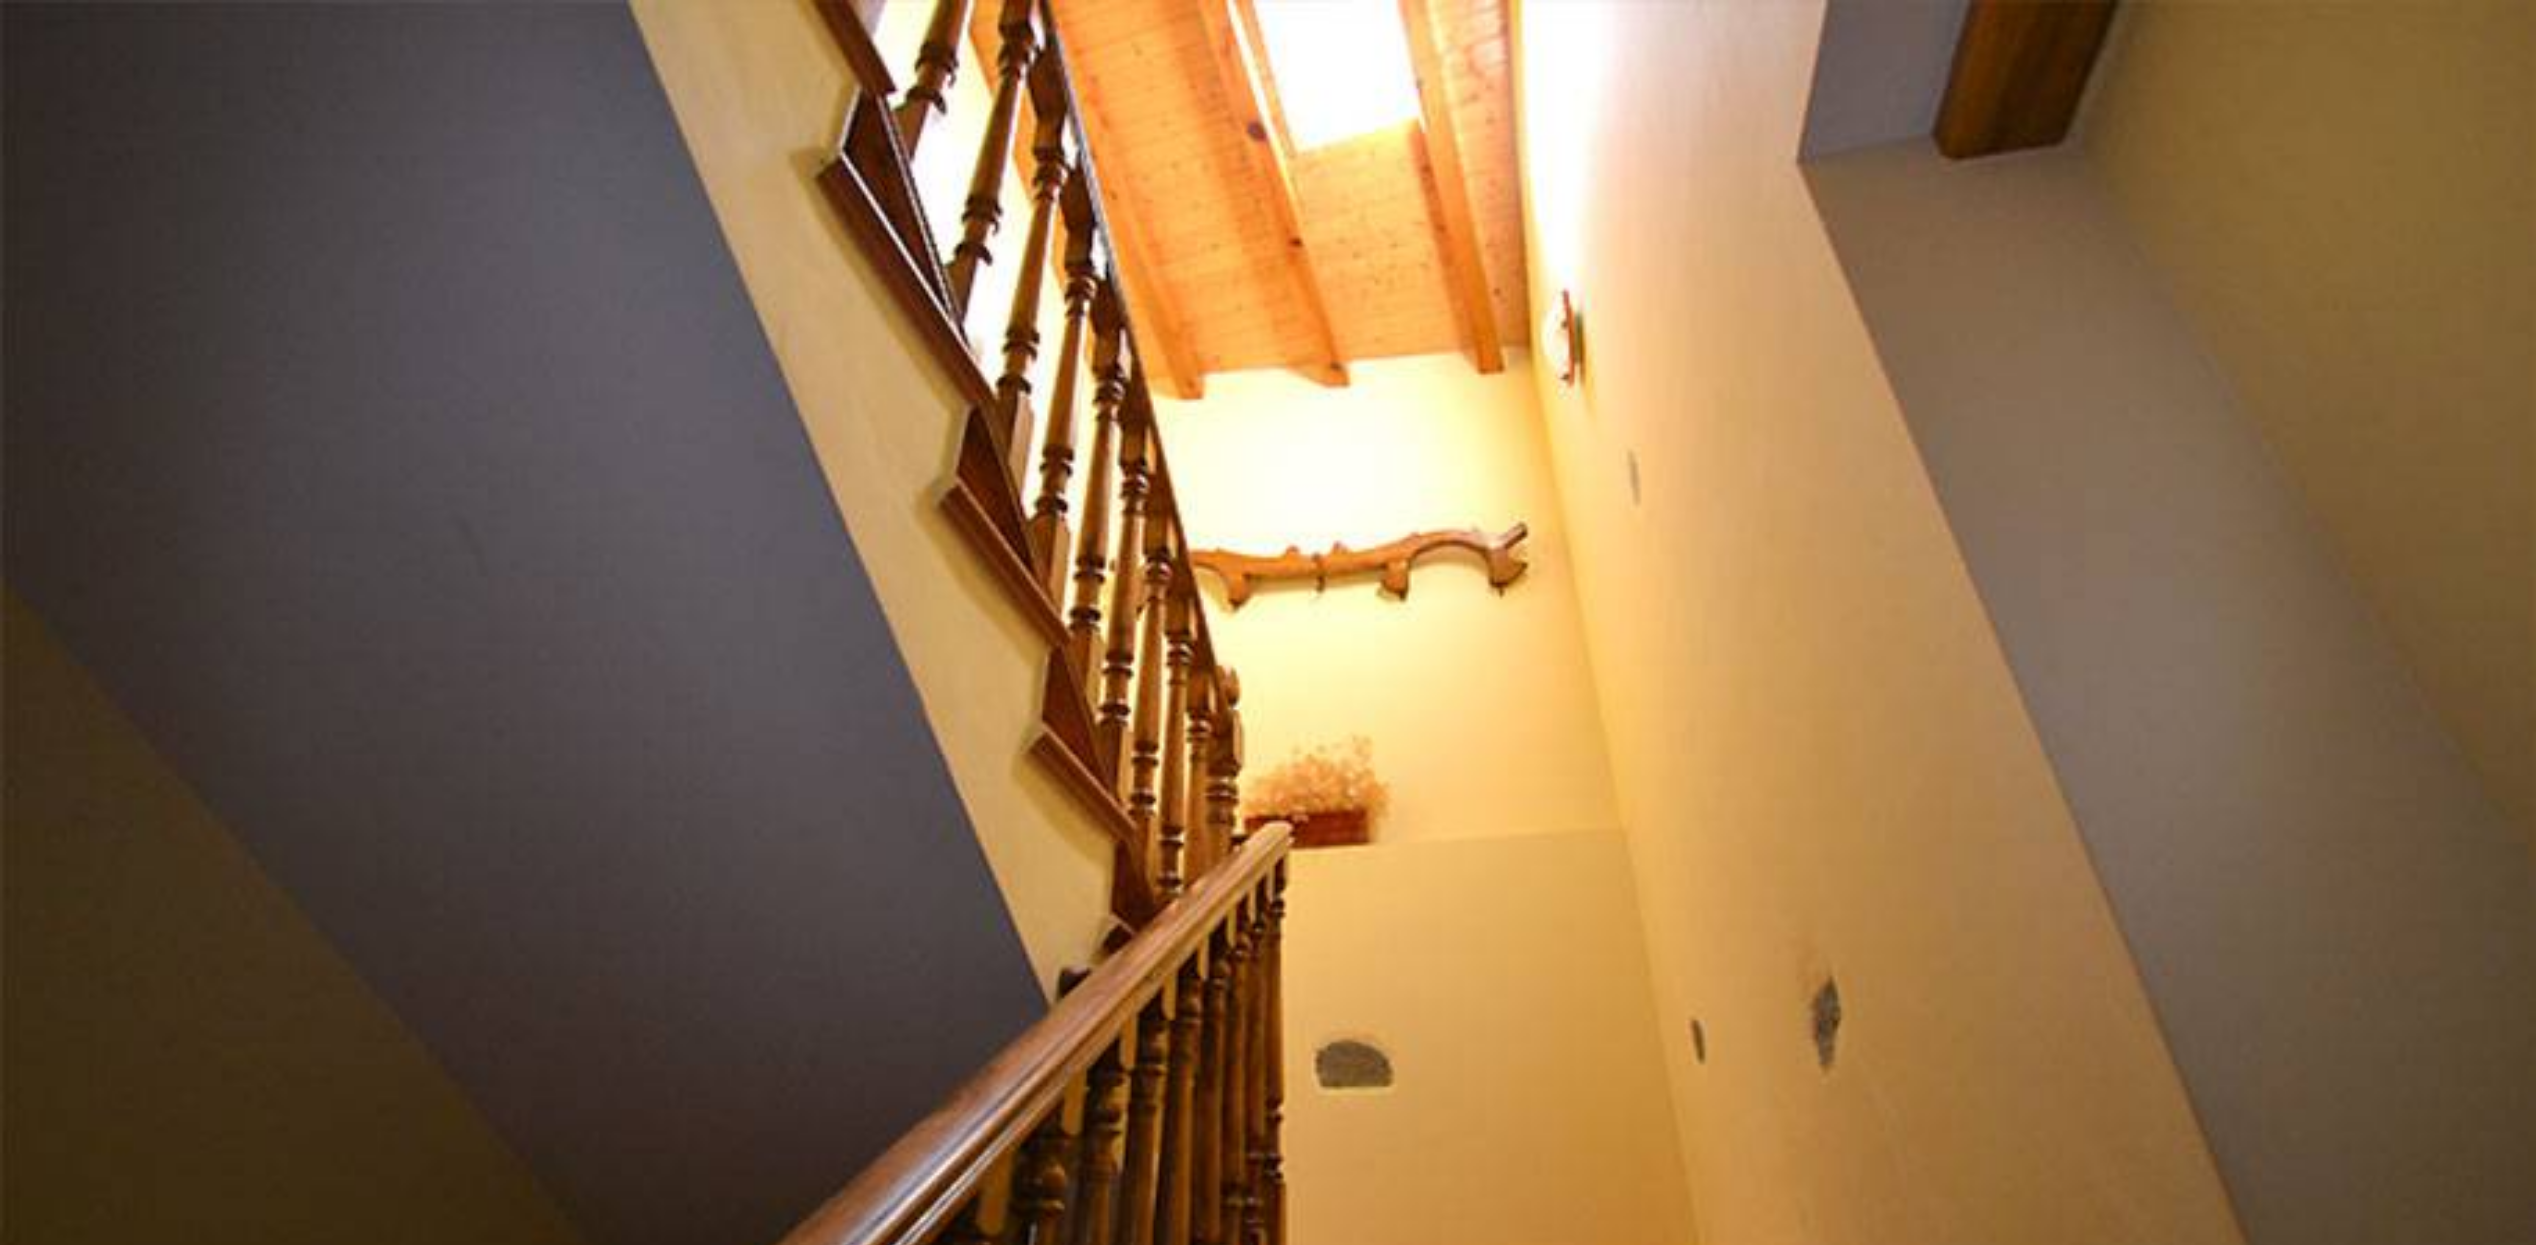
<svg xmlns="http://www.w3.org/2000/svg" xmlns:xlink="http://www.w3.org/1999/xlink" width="2536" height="1245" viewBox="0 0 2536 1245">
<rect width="100%" height="100%" fill="#ffffff"/>
<image xlink:href="image0.png" x="0" y="0" width="2536" height="1245"/>
</svg>
